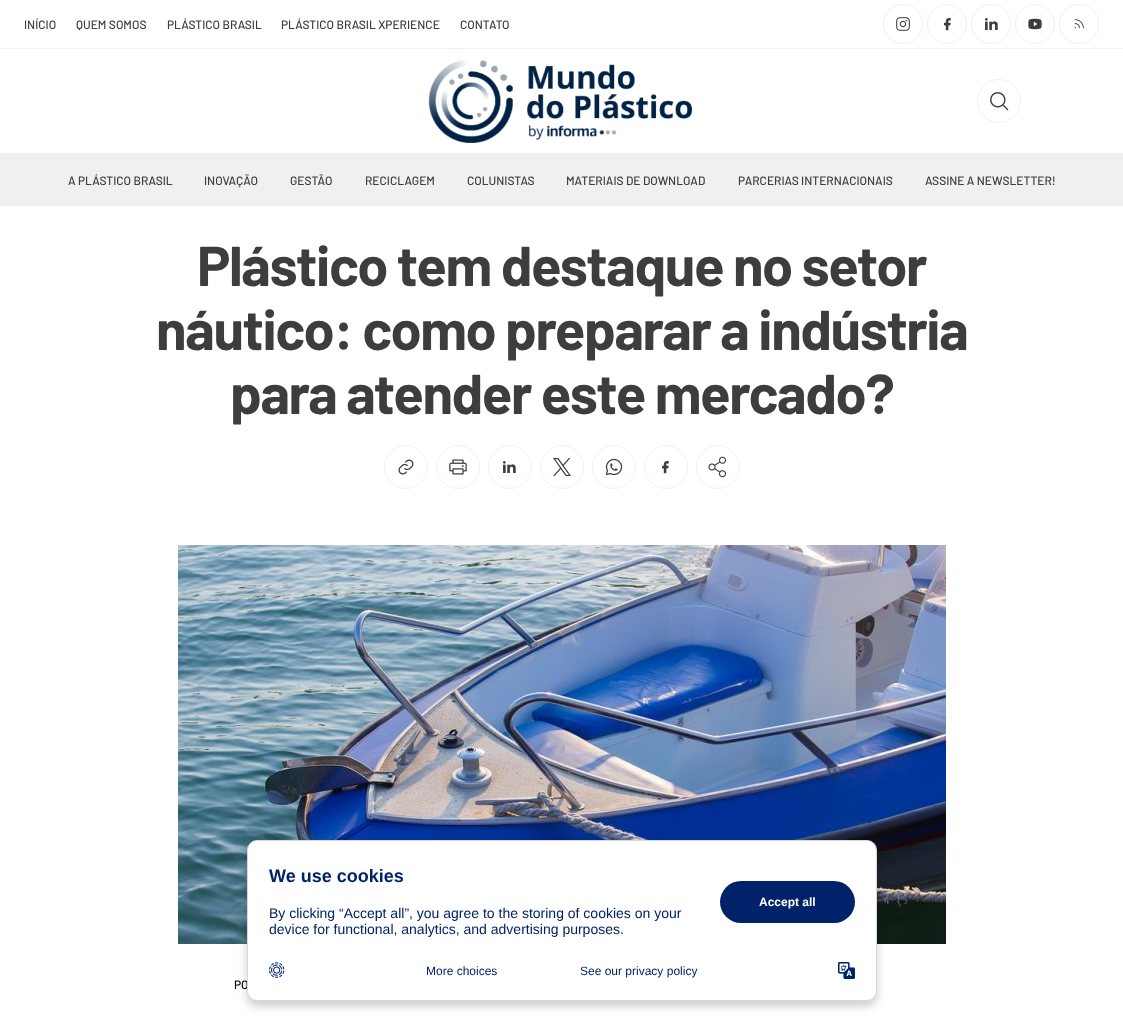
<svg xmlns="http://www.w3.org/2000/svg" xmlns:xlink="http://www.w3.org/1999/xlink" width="1123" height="1023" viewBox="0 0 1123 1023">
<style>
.cls-1{font:500 12px Barlow;fill:#3d3d3d}
.cls-2{font:bold 56px Barlow;letter-spacing:-1.4px;fill:#3d3d3d}
.cls-3{font:500 12px Barlow;fill:#000000}
.cls-4{font:bold 18px Liberation Sans;fill:#00226a}
.cls-5{font:14px Liberation Sans;fill:#00226a}
.cls-6{font:bold 12px Liberation Sans;fill:#ffffff}
.cls-7{font:12px Liberation Sans;fill:#00226a}
</style>
<rect width="100%" height="100%" fill="#ffffff"/>
<rect fill="#f0f0f0" x="0" y="48" width="1123" height="1"/>
<circle fill="none" stroke="#f0f0f0" cx="903" cy="24" r="19.5"/>
<image xlink:href="image0.png" x="896" y="17" width="14" height="14"/>
<circle fill="none" stroke="#f0f0f0" cx="947" cy="24" r="19.5"/>
<image xlink:href="image1.png" x="944" y="18" width="7" height="13"/>
<circle fill="none" stroke="#f0f0f0" cx="991" cy="24" r="19.5"/>
<image xlink:href="image2.png" x="985" y="18" width="13" height="12"/>
<circle fill="none" stroke="#f0f0f0" cx="1035" cy="24" r="19.5"/>
<image xlink:href="image3.png" x="1028" y="18" width="14" height="12"/>
<circle fill="none" stroke="#f0f0f0" cx="1079" cy="24" r="19.5"/>
<image xlink:href="image4.png" x="1074" y="19" width="10" height="10"/>
<image xlink:href="image5.png" x="428" y="59" width="264" height="84"/>
<circle fill="none" stroke="#f0f0f0" cx="999" cy="101" r="21.5"/>
<image xlink:href="image6.png" x="990" y="92" width="19" height="19"/>
<rect fill="#f0f0f0" x="0" y="153" width="1123" height="53"/>
<circle fill="none" stroke="#f0f0f0" cx="406" cy="467" r="21.5"/>
<image xlink:href="image7.png" x="398" y="459" width="16" height="16"/>
<circle fill="none" stroke="#f0f0f0" cx="458" cy="467" r="21.5"/>
<image xlink:href="image8.png" x="449" y="459" width="18" height="16"/>
<circle fill="none" stroke="#f0f0f0" cx="510" cy="467" r="21.5"/>
<image xlink:href="image2.png" x="503" y="461" width="13" height="12"/>
<circle fill="none" stroke="#f0f0f0" cx="562" cy="467" r="21.5"/>
<image xlink:href="image9.png" x="553" y="458" width="18" height="18"/>
<circle fill="none" stroke="#f0f0f0" cx="614" cy="467" r="21.5"/>
<image xlink:href="image10.png" x="605" y="458" width="18" height="18"/>
<circle fill="none" stroke="#f0f0f0" cx="666" cy="467" r="21.5"/>
<image xlink:href="image1.png" x="662" y="461" width="7" height="13"/>
<circle fill="none" stroke="#f0f0f0" cx="718" cy="467" r="21.5"/>
<image xlink:href="image11.png" x="708" y="456" width="18" height="22"/>
<image xlink:href="image12.png" x="178" y="545" width="768" height="399"/>
<rect fill="#000000" fill-opacity="0.2" filter="blur(5px)" x="247" y="845" width="630" height="161" rx="10"/>
<text class="cls-1" x="24" y="29">INÍCIO</text>
<text class="cls-1" x="76" y="29">QUEM SOMOS</text>
<text class="cls-1" x="167" y="29">PLÁSTICO BRASIL</text>
<text class="cls-1" x="281" y="29">PLÁSTICO BRASIL XPERIENCE</text>
<text class="cls-1" x="460" y="29">CONTATO</text>
<text class="cls-1" x="68" y="185">A PLÁSTICO BRASIL</text>
<text class="cls-1" x="204" y="185">INOVAÇÃO</text>
<text class="cls-1" x="290" y="185">GESTÃO</text>
<text class="cls-1" x="365" y="185">RECICLAGEM</text>
<text class="cls-1" x="467" y="185">COLUNISTAS</text>
<text class="cls-1" x="566" y="185">MATERIAIS DE DOWNLOAD</text>
<text class="cls-1" x="738" y="185">PARCERIAS INTERNACIONAIS</text>
<text class="cls-1" x="925" y="185">ASSINE A NEWSLETTER!</text>
<text class="cls-2" x="197" y="286">Plástico tem destaque no setor</text>
<text class="cls-2" x="156" y="350">náutico: como preparar a indústria</text>
<text class="cls-2" x="230" y="414">para atender este mercado?</text>
<text class="cls-3" x="234" y="989">PO</text>
<rect fill="#ffffff" stroke="#d8d8d8" x="247.5" y="840.5" width="629" height="160" rx="9.5"/>
<text class="cls-4" x="269" y="882">We use cookies</text>
<text class="cls-5"><tspan x="269" y="918">By clicking “Accept all”, you agree to the storing of cookies on your</tspan><tspan x="269" y="934">device for functional, analytics, and advertising purposes.</tspan></text>
<rect fill="#00226a" x="720" y="881" width="135" height="42" rx="21"/>
<text class="cls-6" x="759" y="906">Accept all</text>
<image xlink:href="image13.png" x="269" y="962" width="16" height="16"/>
<text class="cls-7" x="426" y="975">More choices</text>
<text class="cls-7" x="580" y="975">See our privacy policy</text>
<image xlink:href="image14.png" x="838" y="962" width="17" height="17"/>
</svg>
